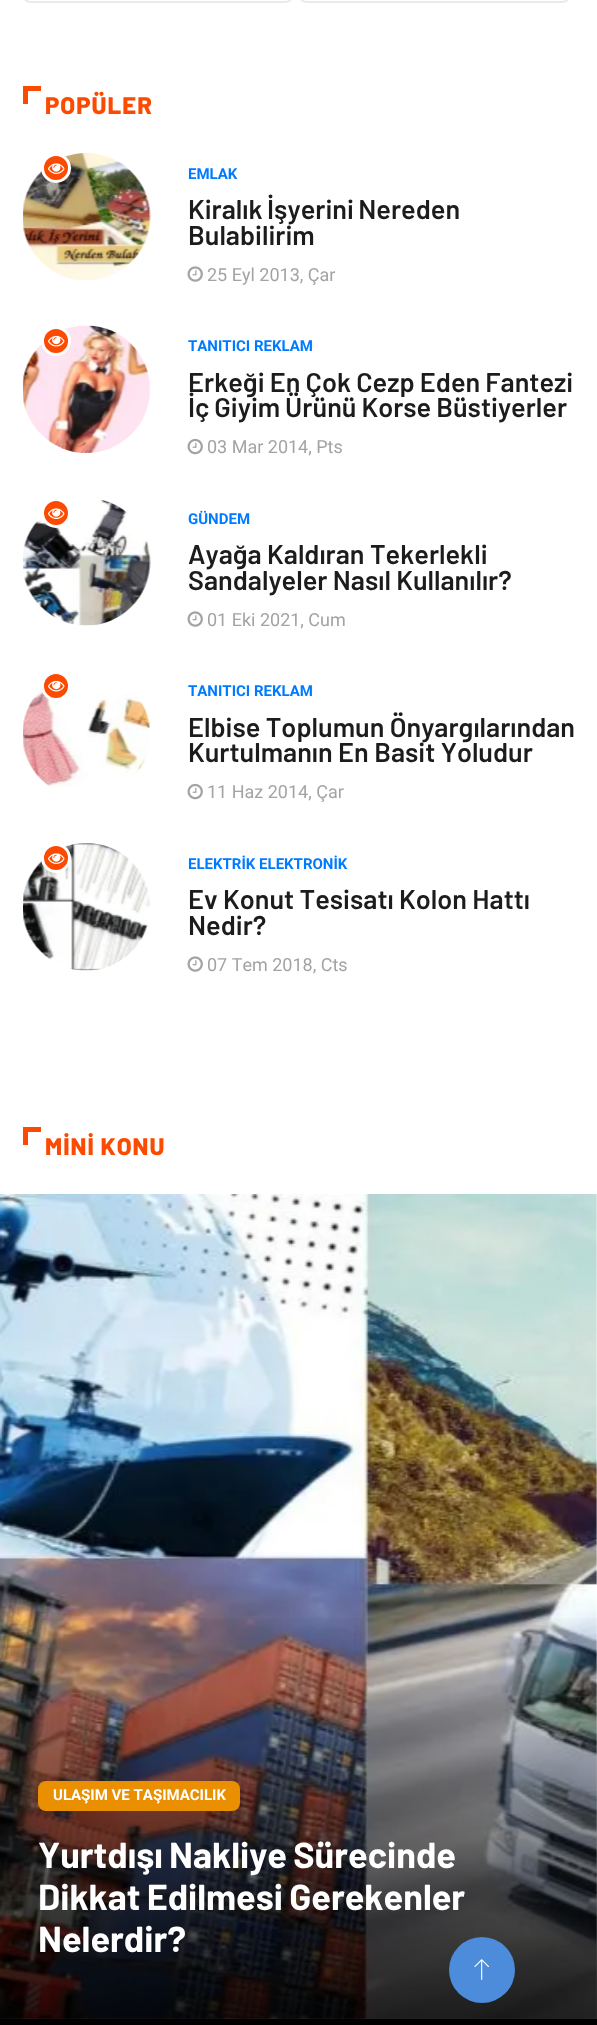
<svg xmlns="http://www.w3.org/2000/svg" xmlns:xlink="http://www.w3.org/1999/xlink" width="597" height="2025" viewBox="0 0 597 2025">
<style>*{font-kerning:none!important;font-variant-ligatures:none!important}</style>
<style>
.cls-1{font:800 24px Barlow;letter-spacing:1px;fill:#fc4a00}
.cls-2{font:bold 15px Roboto;fill:#007bff}
.cls-3{font:600 27px Barlow;fill:#1c1c1c}
.cls-4{font:18px Roboto;fill:#a3a3a3}
.cls-5{font:bold 15px Roboto;fill:#ffffff}
.cls-6{font:bold 36px Barlow;fill:#ffffff}
</style>
<defs>
<linearGradient id="g1" gradientUnits="userSpaceOnUse" x1="299" y1="1194" x2="299" y2="2019"><stop offset="0.5" stop-color="#000000" stop-opacity="0"/><stop offset="1" stop-color="#000000" stop-opacity="0.8"/></linearGradient>
</defs>
<rect width="100%" height="100%" fill="#ffffff"/>
<rect fill="none" stroke="#eaeaea" stroke-width="2" x="24" y="-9" width="268" height="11" rx="7"/>
<rect fill="none" stroke="#eaeaea" stroke-width="2" x="300" y="-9" width="269" height="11" rx="7"/>
<rect fill="#fc4a00" x="23" y="86" width="5" height="18"/>
<rect fill="#fc4a00" x="23" y="86" width="18" height="5"/>
<image xlink:href="image0.png" x="23" y="153" width="128" height="128"/>
<circle fill="#fc4a00" stroke="#ffffff" stroke-width="3" cx="56" cy="168" r="13.5"/>
<image xlink:href="image1.png" x="48" y="163" width="17" height="11"/>
<image xlink:href="image2.png" x="187" y="266" width="16" height="16"/>
<image xlink:href="image3.png" x="23" y="325" width="128" height="128"/>
<circle fill="#fc4a00" stroke="#ffffff" stroke-width="3" cx="56" cy="341" r="13.5"/>
<image xlink:href="image4.png" x="48" y="335" width="17" height="12"/>
<image xlink:href="image5.png" x="187" y="438" width="16" height="17"/>
<image xlink:href="image6.png" x="23" y="500" width="128" height="126"/>
<circle fill="#fc4a00" stroke="#ffffff" stroke-width="3" cx="56" cy="513" r="13.5"/>
<image xlink:href="image1.png" x="48" y="508" width="17" height="11"/>
<image xlink:href="image2.png" x="187" y="611" width="16" height="16"/>
<image xlink:href="image7.png" x="23" y="689" width="128" height="98"/>
<circle fill="#fc4a00" stroke="#ffffff" stroke-width="3" cx="56" cy="686" r="13.5"/>
<image xlink:href="image4.png" x="48" y="680" width="17" height="12"/>
<image xlink:href="image5.png" x="187" y="783" width="16" height="17"/>
<image xlink:href="image8.png" x="23" y="843" width="128" height="128"/>
<circle fill="#fc4a00" stroke="#ffffff" stroke-width="3" cx="56" cy="858" r="13.5"/>
<image xlink:href="image1.png" x="48" y="853" width="17" height="11"/>
<image xlink:href="image2.png" x="187" y="956" width="16" height="16"/>
<rect fill="#fc4a00" x="23" y="1127" width="5" height="18"/>
<rect fill="#fc4a00" x="23" y="1127" width="18" height="5"/>
<image xlink:href="image9.png" x="0" y="1194" width="597" height="825"/>
<rect fill="url(#g1)" x="0" y="1618" width="597" height="401"/>
<rect fill="#ea8f00" x="38" y="1781" width="202" height="30" rx="8"/>
<circle fill="#4c8cdb" cx="482" cy="1970" r="33"/>
<image xlink:href="image10.png" x="474" y="1959" width="15" height="21"/>
<rect fill="#000000" x="0" y="2019" width="597" height="6"/>
<text class="cls-1" x="45" y="114">POPÜLER</text>
<text class="cls-2" x="188" y="179">EMLAK</text>
<text class="cls-3"><tspan x="188" y="219" word-spacing="-1">Kiralık İşyerini Nereden</tspan><tspan x="188" y="245">Bulabilirim</tspan></text>
<text class="cls-4" x="207" y="281">25 Eyl 2013, Çar</text>
<text class="cls-2" x="188" y="351">TANITICI REKLAM</text>
<text class="cls-3"><tspan x="188" y="392" word-spacing="-0.25">Erkeği En Çok Cezp Eden Fantezi</tspan><tspan x="188" y="417" word-spacing="-0.5">İç Giyim Ürünü Korse Büstiyerler</tspan></text>
<text class="cls-4" x="207" y="453">03 Mar 2014, Pts</text>
<text class="cls-2" x="188" y="524">GÜNDEM</text>
<text class="cls-3"><tspan x="188" y="564">Ayağa Kaldıran Tekerlekli</tspan><tspan x="188" y="590">Sandalyeler Nasıl Kullanılır?</tspan></text>
<text class="cls-4" x="207" y="626">01 Eki 2021, Cum</text>
<text class="cls-2" x="188" y="696">TANITICI REKLAM</text>
<text class="cls-3"><tspan x="188" y="737">Elbise Toplumun Önyargılarından</tspan><tspan x="188" y="762">Kurtulmanın En Basit Yoludur</tspan></text>
<text class="cls-4" x="207" y="798">11 Haz 2014, Çar</text>
<text class="cls-2" x="188" y="869">ELEKTRİK ELEKTRONİK</text>
<text class="cls-3"><tspan x="188" y="909">Ev Konut Tesisatı Kolon Hattı</tspan><tspan x="188" y="935">Nedir?</tspan></text>
<text class="cls-4" x="207" y="971">07 Tem 2018, Cts</text>
<text class="cls-1" x="45" y="1155">MİNİ KONU</text>
<text class="cls-5" x="53" y="1800">ULAŞIM VE TAŞIMACILIK</text>
<text class="cls-6"><tspan x="38" y="1868" word-spacing="-1">Yurtdışı Nakliye Sürecinde</tspan><tspan x="38" y="1910" word-spacing="-1">Dikkat Edilmesi Gerekenler</tspan><tspan x="38" y="1952">Nelerdir?</tspan></text>
</svg>
